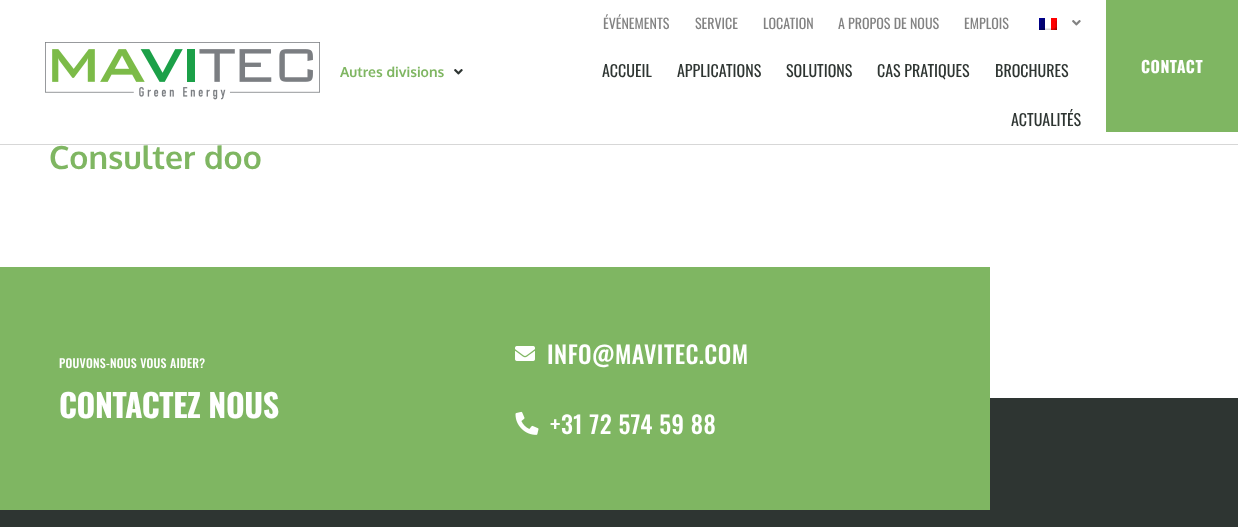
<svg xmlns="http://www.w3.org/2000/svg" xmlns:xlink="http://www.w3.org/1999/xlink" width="1238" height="527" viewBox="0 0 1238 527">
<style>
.cls-1{font:bold 14px Oxygen;fill:#7fb662}
.cls-2{font:14px Oswald;fill:#828282}
.cls-3{font:16px Oswald;fill:#2e3532}
.cls-4{font:bold 16px Oswald;letter-spacing:0.5px;fill:#ffffff}
.cls-5{font:bold 32px Oxygen;fill:#7fb662}
.cls-6{font:500 12px Oswald;letter-spacing:0.25px;fill:#ffffff}
.cls-7{font:bold 32px Oswald;letter-spacing:-0.4px;fill:#ffffff}
.cls-8{font:500 24px Oswald;letter-spacing:0.5px;fill:#ffffff}
</style>
<rect width="100%" height="100%" fill="#ffffff"/>
<rect fill="#d7d7d7" x="0" y="144" width="1238" height="1"/>
<image xlink:href="image0.png" x="45" y="42" width="275" height="58"/>
<image xlink:href="image1.png" x="454" y="69" width="9" height="6"/>
<image xlink:href="image2.png" x="1039" y="18" width="18" height="12"/>
<image xlink:href="image3.png" x="1072" y="20" width="9" height="6"/>
<rect fill="#7fb662" x="1106" y="0" width="132" height="132"/>
<rect fill="#2e3532" x="0" y="398" width="1238" height="129"/>
<rect fill="#7fb662" x="0" y="267" width="990" height="243"/>
<image xlink:href="image4.png" x="515" y="346" width="20" height="15"/>
<image xlink:href="image5.png" x="515" y="411" width="24" height="24"/>
<text class="cls-1" x="340" y="77">Autres divisions</text>
<text class="cls-2" x="603" y="29">ÉVÉNEMENTS</text>
<text class="cls-2" x="695" y="29">SERVICE</text>
<text class="cls-2" x="763" y="29">LOCATION</text>
<text class="cls-2" x="838" y="29">A PROPOS DE NOUS</text>
<text class="cls-2" x="964" y="29">EMPLOIS</text>
<text class="cls-3" x="602" y="77">ACCUEIL</text>
<text class="cls-3" x="677" y="77">APPLICATIONS</text>
<text class="cls-3" x="786" y="77">SOLUTIONS</text>
<text class="cls-3" x="877" y="77">CAS PRATIQUES</text>
<text class="cls-3" x="995" y="77">BROCHURES</text>
<text class="cls-3" x="1011" y="126">ACTUALITÉS</text>
<text class="cls-4" x="1141" y="73">CONTACT</text>
<text class="cls-5" x="49" y="169">Consulter doo</text>
<text class="cls-6" x="59" y="368">POUVONS-NOUS VOUS AIDER?</text>
<text class="cls-7" x="59" y="418">CONTACTEZ NOUS</text>
<text class="cls-8" x="547" y="364">INFO@MAVITEC.COM</text>
<text class="cls-8" x="550" y="434">+31 72 574 59 88</text>
</svg>
